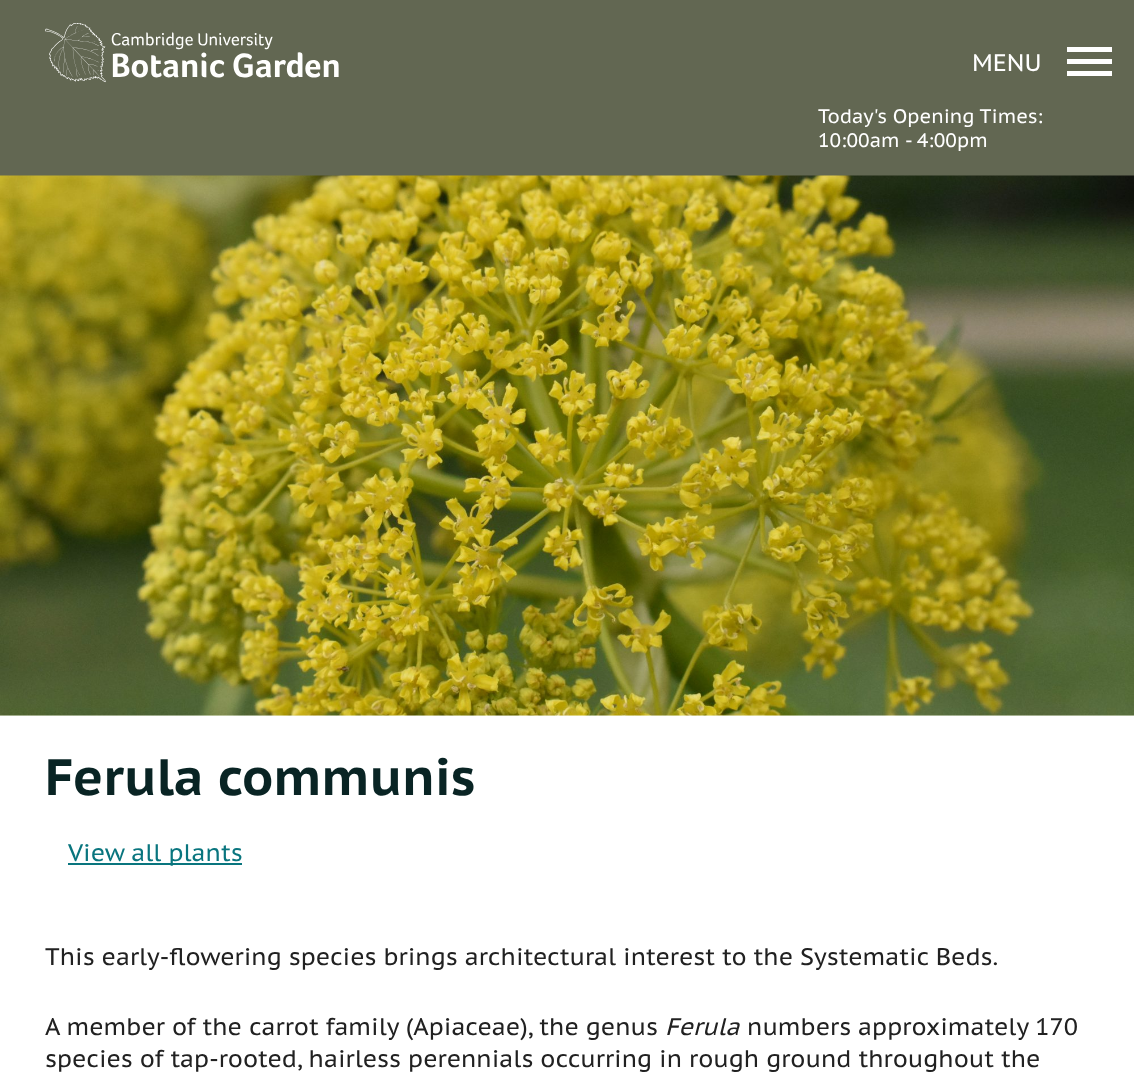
<svg xmlns="http://www.w3.org/2000/svg" xmlns:xlink="http://www.w3.org/1999/xlink" width="1134" height="1088" viewBox="0 0 1134 1088">
<style>
.cls-1{font:24px PT Sans Caption;fill:#ffffff}
.cls-2{font:19.5px PT Sans Caption;fill:#ffffff}
.cls-3{font:bold 51px PT Sans Caption;fill:#092424}
.cls-4{font:24px PT Sans Caption;fill:#09757e}
.cls-5{font:24px PT Sans Caption;fill:#212121}
.cls-6{font:italic 24px PT Sans Caption;fill:#212121}
</style>
<rect width="100%" height="100%" fill="#ffffff"/>
<rect fill="#626752" x="0" y="0" width="1134" height="176"/>
<image xlink:href="image0.png" x="45" y="23" width="294" height="60"/>
<rect fill="#ffffff" x="1067" y="47" width="45" height="5"/>
<rect fill="#ffffff" x="1067" y="59" width="45" height="5"/>
<rect fill="#ffffff" x="1067" y="71" width="45" height="5"/>
<rect fill="#f4f8e9" x="0" y="715" width="1134" height="1"/>
<image xlink:href="image1.png" x="0" y="175" width="1134" height="541"/>
<rect fill="#09757e" x="68" y="863" width="174" height="2"/>
<text class="cls-1" x="972" y="71">MENU</text>
<text class="cls-2"><tspan x="818" y="123">Today's Opening Times:</tspan><tspan x="818" y="147">10:00am - 4:00pm</tspan></text>
<text class="cls-3" x="45" y="795">Ferula communis</text>
<text class="cls-4" x="68" y="861">View all plants</text>
<text class="cls-5" x="45" y="965">This early-flowering species brings architectural interest to the Systematic Beds.</text>
<text class="cls-5" x="45" y="1035">A member of the carrot family (Apiaceae), the genus</text>
<text class="cls-6" x="665" y="1035">Ferula</text>
<text class="cls-5" x="747" y="1035">numbers approximately 170</text>
<text class="cls-5" x="45" y="1067">species of tap-rooted, hairless perennials occurring in rough ground throughout the</text>
</svg>
